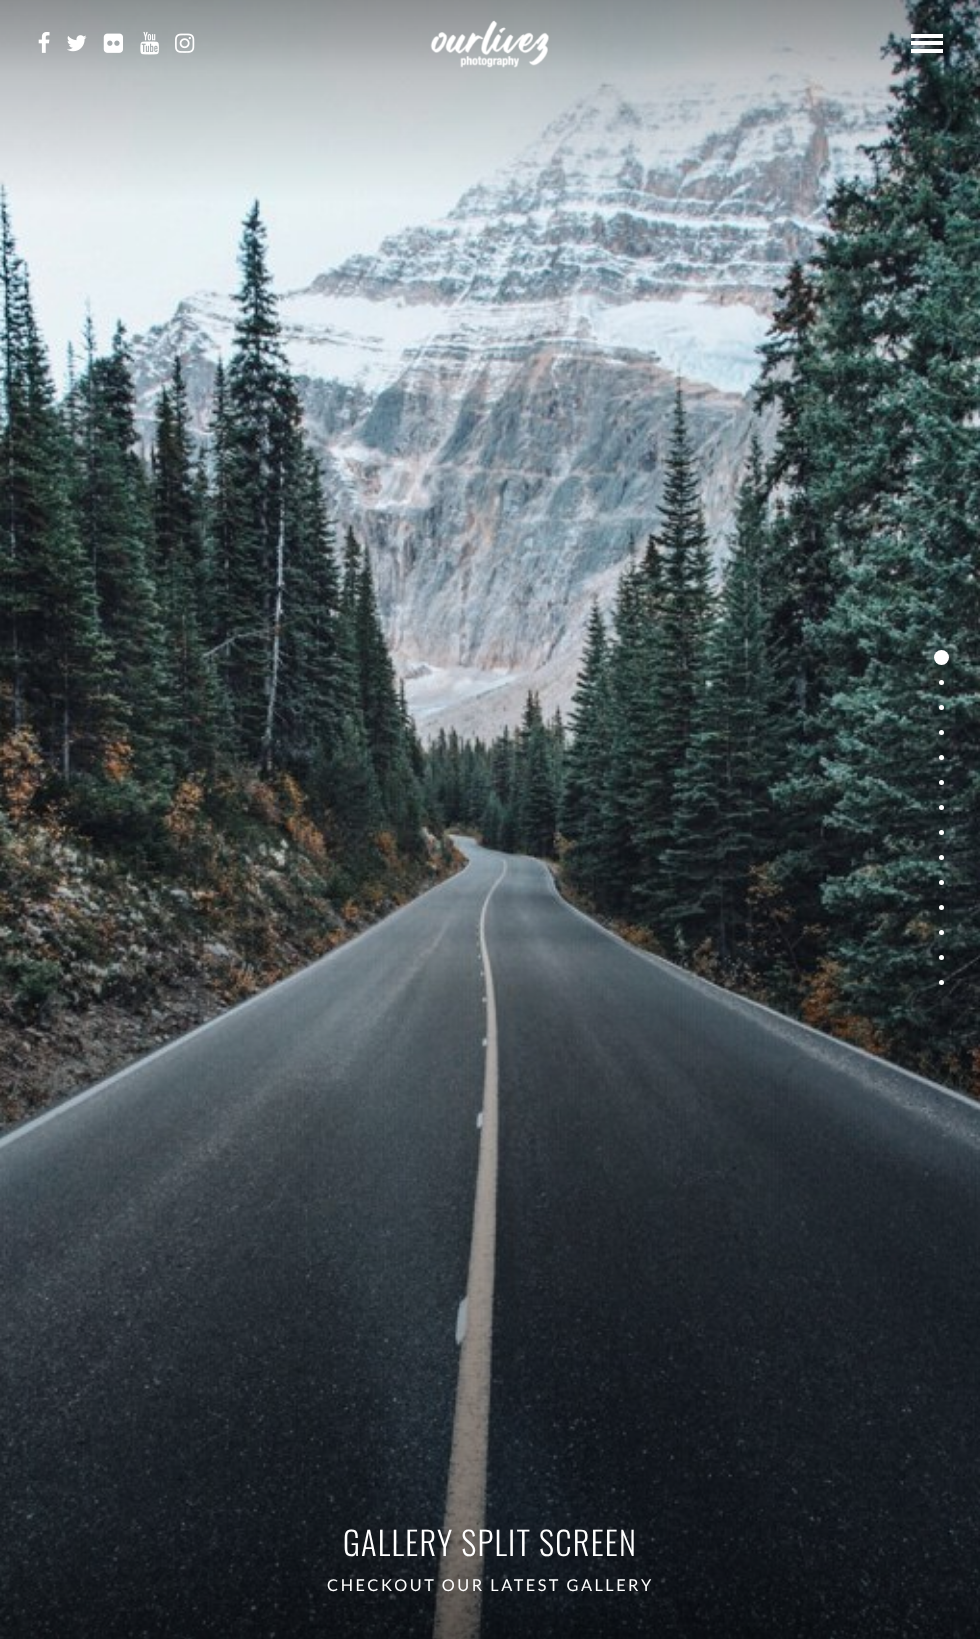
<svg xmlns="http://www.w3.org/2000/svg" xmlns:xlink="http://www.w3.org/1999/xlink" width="980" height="1639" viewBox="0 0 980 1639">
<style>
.cls-1{font:300 32.5px Oswald;letter-spacing:1.25px;fill:#ffffff}
.cls-2{font:16.25px Lato;letter-spacing:2.5px;fill:#ffffff}
</style>
<rect width="100%" height="100%" fill="#ffffff"/>
<image xlink:href="image6.png" x="0" y="0" width="980" height="1639"/>
<circle fill="#ffffff" cx="941.5" cy="657.5" r="7.5"/>
<circle fill="#ffffff" cx="941.5" cy="682.5" r="2.5"/>
<circle fill="#ffffff" cx="941.5" cy="707.5" r="2.5"/>
<circle fill="#ffffff" cx="941.5" cy="732.5" r="2.5"/>
<circle fill="#ffffff" cx="941.5" cy="757.5" r="2.5"/>
<circle fill="#ffffff" cx="941.5" cy="782.5" r="2.5"/>
<circle fill="#ffffff" cx="941.5" cy="807.5" r="2.5"/>
<circle fill="#ffffff" cx="941.5" cy="832.5" r="2.5"/>
<circle fill="#ffffff" cx="941.5" cy="857.5" r="2.5"/>
<circle fill="#ffffff" cx="941.5" cy="882.5" r="2.5"/>
<circle fill="#ffffff" cx="941.5" cy="907.5" r="2.5"/>
<circle fill="#ffffff" cx="941.5" cy="932.5" r="2.5"/>
<circle fill="#ffffff" cx="941.5" cy="957.5" r="2.5"/>
<circle fill="#ffffff" cx="941.5" cy="982.5" r="2.5"/>
<image xlink:href="image0.png" x="38" y="32" width="12" height="21"/>
<image xlink:href="image1.png" x="67" y="35" width="20" height="17"/>
<image xlink:href="image2.png" x="103" y="33" width="20" height="20"/>
<image xlink:href="image3.png" x="140" y="31" width="19" height="24"/>
<image xlink:href="image4.png" x="175" y="33" width="20" height="20"/>
<image xlink:href="image5.png" x="430" y="20" width="119" height="48"/>
<rect fill="#ffffff" x="911" y="34" width="32" height="4"/>
<rect fill="#ffffff" x="911" y="41" width="32" height="4"/>
<rect fill="#ffffff" x="911" y="49" width="32" height="4"/>
<text class="cls-1" x="343" y="1556">GALLERY SPLIT SCREEN</text>
<text class="cls-2" x="327" y="1591">CHECKOUT OUR LATEST GALLERY</text>
</svg>
